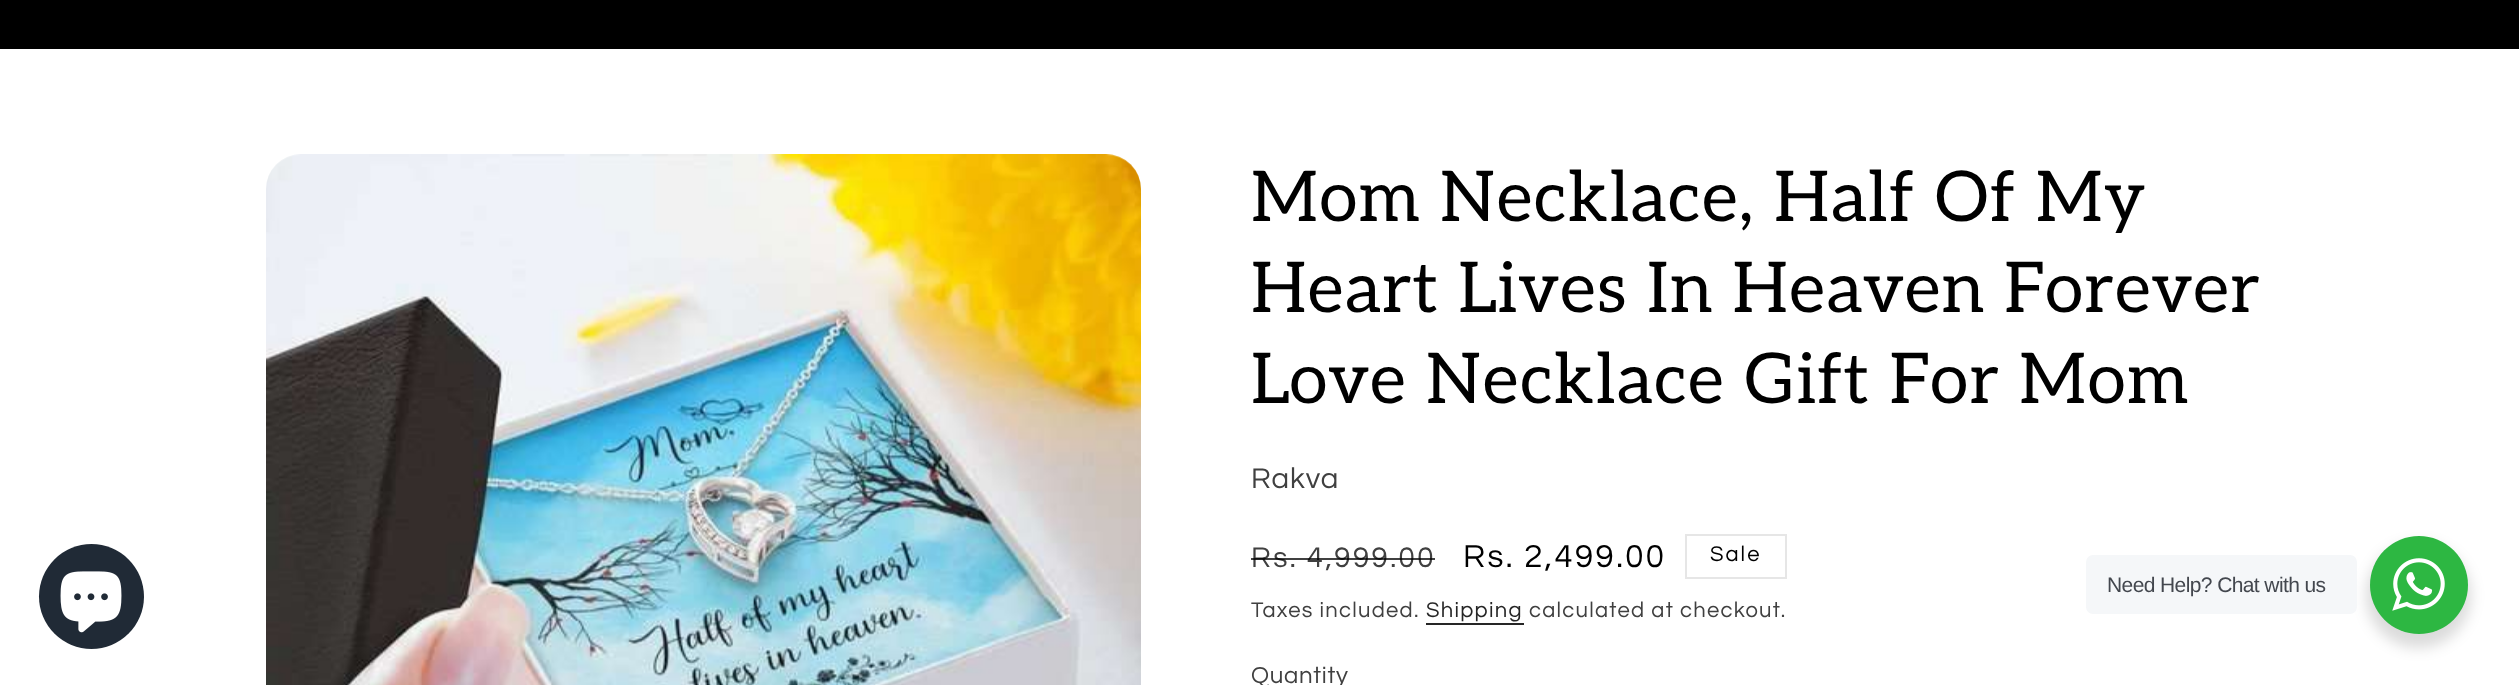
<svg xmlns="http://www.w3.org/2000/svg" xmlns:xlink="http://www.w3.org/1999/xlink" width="2519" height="685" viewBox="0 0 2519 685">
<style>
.cls-1{font:70px Aleo;letter-spacing:1.05px;fill:#000000}
.cls-2{font:29.5px Questrial;letter-spacing:1px;fill:#404040}
.cls-3{font:29.5px Questrial;letter-spacing:2.4px;fill:#404040}
.cls-4{font:33px Questrial;letter-spacing:2.4px;fill:#000000}
.cls-5{font:22px Questrial;letter-spacing:2px;fill:#000000}
.cls-6{font:22px Questrial;letter-spacing:1.25px;fill:#404040}
.cls-7{font:22px Questrial;letter-spacing:1.25px;fill:#262626}
.cls-8{font:24px Questrial;letter-spacing:0.75px;fill:#404040}
.cls-9{font:21px Liberation Sans;letter-spacing:-0.6px;fill:#43474e}
</style>
<rect width="100%" height="100%" fill="#ffffff"/>
<rect fill="#000000" x="0" y="0" width="2519" height="49"/>
<circle fill="#202a36" cx="91.5" cy="596.5" r="52.5"/>
<image xlink:href="image0.png" x="60" y="571" width="62" height="62"/>
<image xlink:href="image1.png" x="266" y="154" width="875" height="531"/>
<rect fill="none" stroke="#e6e6e6" stroke-width="2" x="1686" y="535" width="100" height="43"/>
<rect fill="#262626" x="1426" y="623" width="98" height="2"/>
<rect fill="#000000" fill-opacity="0.14" filter="blur(7px)" x="2366" y="543" width="105" height="105" rx="52.5"/>
<rect fill="#f5f7f9" x="2086" y="555" width="271" height="59" rx="7"/>
<circle fill="#2db742" cx="2419" cy="585" r="49"/>
<image xlink:href="image2.png" x="2392" y="558" width="53" height="53"/>
<text class="cls-1"><tspan x="1251" y="221">Mom Necklace, Half Of My</tspan><tspan x="1251" y="312">Heart Lives In Heaven Forever</tspan><tspan x="1251" y="403">Love Necklace Gift For Mom</tspan></text>
<text class="cls-2" x="1251" y="488">Rakva</text>
<text class="cls-3" x="1251" y="567">Rs. 4,999.00</text>
<rect fill="#000000" fill-opacity="0.75" x="1251" y="558" width="184" height="2"/>
<text class="cls-4" x="1463" y="567">Rs. 2,499.00</text>
<text class="cls-5" x="1710" y="561">Sale</text>
<text class="cls-6" x="1251" y="617">Taxes included.</text>
<text class="cls-7" x="1426" y="617">Shipping</text>
<text class="cls-6" x="1529" y="617">calculated at checkout.</text>
<text class="cls-8" x="1251" y="683">Quantity</text>
<text class="cls-9" x="2107" y="592">Need Help? Chat with us</text>
</svg>
